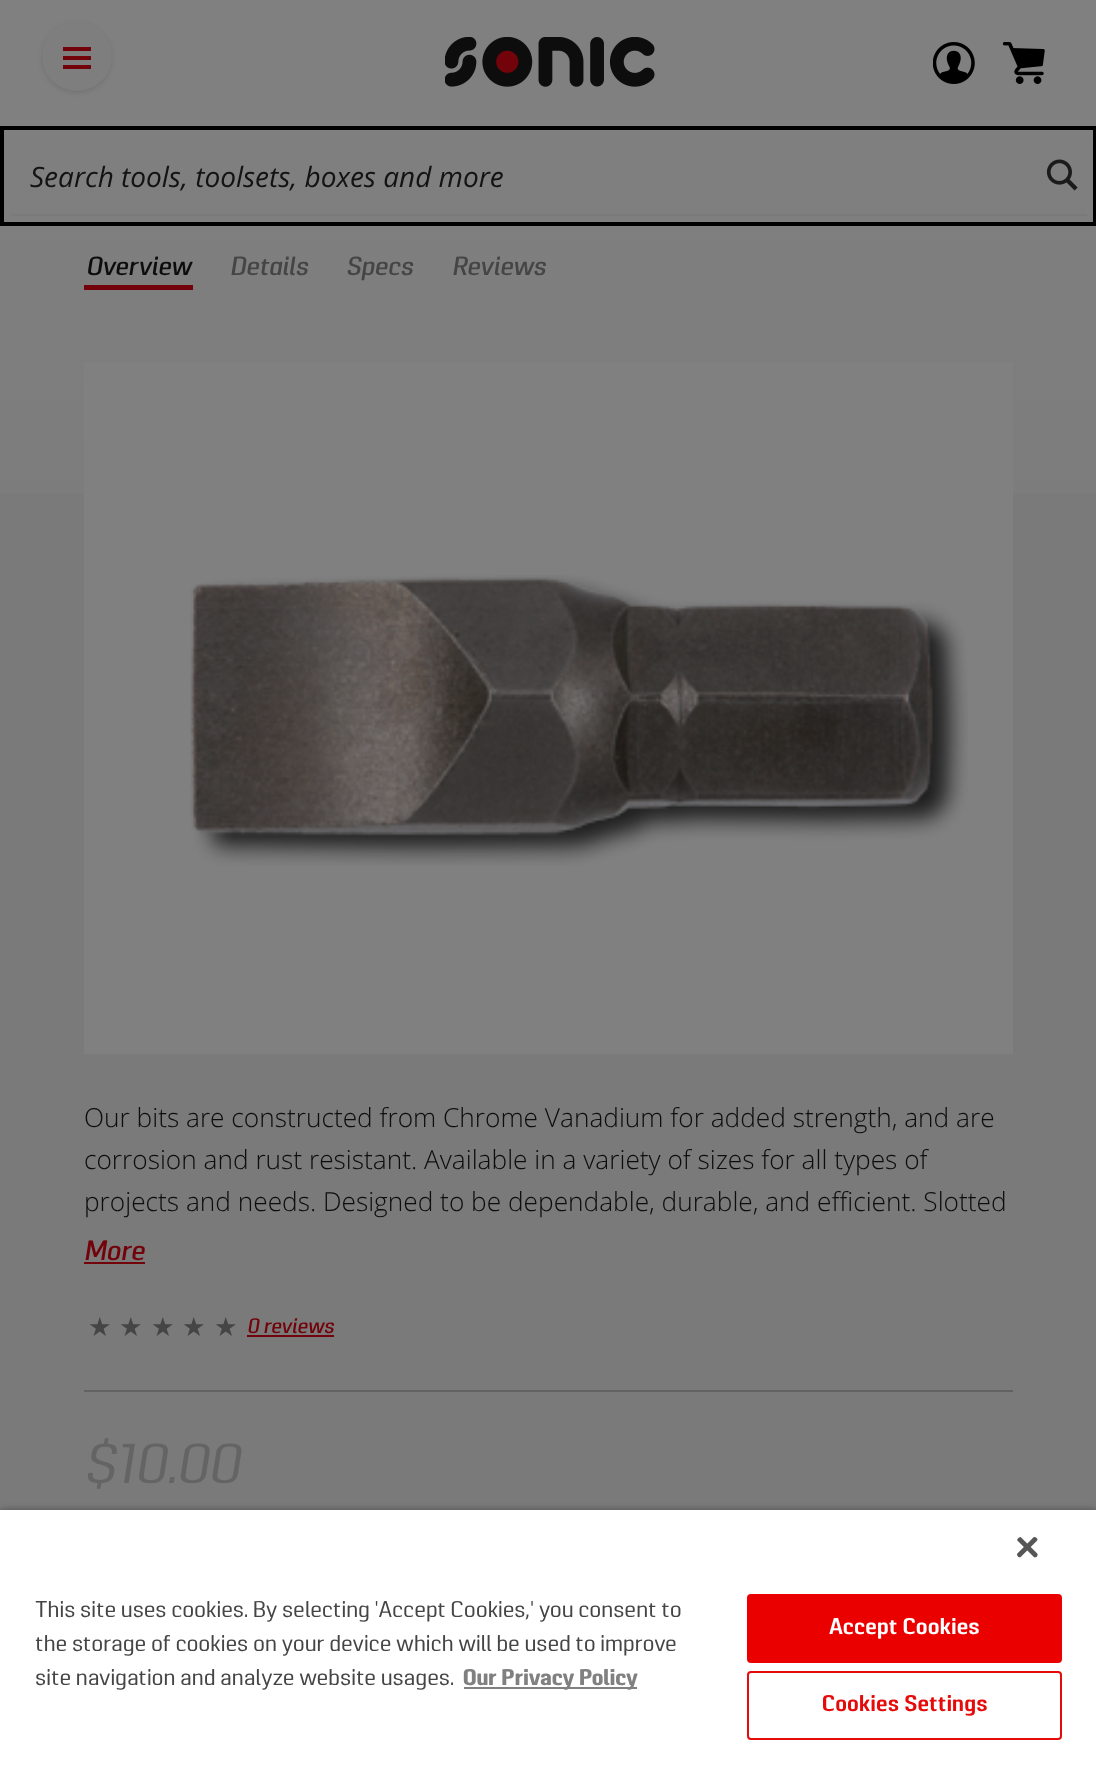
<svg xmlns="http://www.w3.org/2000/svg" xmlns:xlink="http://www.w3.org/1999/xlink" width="1096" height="1766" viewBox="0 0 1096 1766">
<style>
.cls-1{font:italic 28px Open Sans;fill:#131313}
.cls-2{font:italic 500 26.25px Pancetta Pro;fill:#0d0d0d}
.cls-3{font:italic 500 26.25px Pancetta Pro;fill:#454545}
.cls-4{font:300 26.25px Open Sans;fill:#0d0d0d}
.cls-5{font:italic 500 28px Pancetta Pro;fill:#72030a}
.cls-6{font:26.25px DejaVu Sans;fill:#454545}
.cls-7{font:italic 500 21px Pancetta Pro;fill:#72030a}
.cls-8{font:italic 56px Pancetta Pro;fill:#646464}
.cls-9{font:22.75px Pancetta Pro;fill:#454545}
.cls-10{font:bold 22.75px Pancetta Pro;fill:#808080}
.cls-11{font:600 22.75px Pancetta Pro;letter-spacing:0.25px;fill:#ffffff}
.cls-12{font:600 22.75px Pancetta Pro;letter-spacing:0.25px;fill:#e60a0a}
</style>
<defs>
<linearGradient id="g1" gradientUnits="userSpaceOnUse" x1="549" y1="952" x2="549" y2="35"><stop offset="0" stop-color="#797979"/><stop offset="1" stop-color="#808080"/></linearGradient>
</defs>
<rect width="100%" height="100%" fill="#7a7a7a"/>
<rect fill="#808080" x="0" y="0" width="1096" height="126"/>
<rect fill="#000000" fill-opacity="0.1" filter="blur(2.5px)" x="42" y="23" width="70" height="70" rx="35"/>
<circle fill="#7e7e7e" cx="77" cy="56" r="35"/>
<rect fill="#72030a" x="63" y="47" width="28" height="4"/>
<rect fill="#72030a" x="63" y="56" width="28" height="4"/>
<rect fill="#72030a" x="63" y="65" width="28" height="4"/>
<image xlink:href="image0.png" x="445" y="37" width="210" height="50"/>
<image xlink:href="image1.png" x="933" y="42" width="42" height="42"/>
<image xlink:href="image2.png" x="1003" y="42" width="42" height="42"/>
<rect fill="url(#g1)" x="0" y="130" width="1096" height="364"/>
<rect fill="none" stroke="#000000" stroke-width="4" x="2" y="128" width="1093" height="96"/>
<rect fill="#7a7a7a" x="11" y="214" width="1076" height="2"/>
<image xlink:href="image3.png" x="1046" y="159" width="32" height="32"/>
<rect fill="#72030a" x="84" y="285" width="109" height="5"/>
<rect fill="#808080" x="84" y="362" width="929" height="692"/>
<image xlink:href="image4.png" x="190" y="575" width="778" height="291"/>
<rect fill="#72030a" x="84" y="1262" width="61" height="2"/>
<rect fill="#72030a" x="247" y="1335" width="87" height="2"/>
<rect fill="#626263" x="84" y="1390" width="929" height="2"/>
<rect fill="#000000" fill-opacity="0.35" filter="blur(3.5px)" x="0" y="1510" width="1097" height="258"/>
<rect fill="#ffffff" x="0" y="1510" width="1096" height="256"/>
<image xlink:href="image5.png" x="1017" y="1537" width="21" height="21"/>
<rect fill="#808080" x="464" y="1687" width="173" height="2"/>
<rect fill="#eb0000" stroke="#eb0000" stroke-width="2" x="748" y="1595" width="313" height="67" rx="3"/>
<rect fill="none" stroke="#e60a0a" stroke-width="2" x="748" y="1672" width="313" height="67" rx="3"/>
<text class="cls-1" x="30" y="187">Search tools, toolsets, boxes and more</text>
<text class="cls-2" x="86" y="275">Overview</text>
<text class="cls-3" x="230" y="275">Details</text>
<text class="cls-3" x="346" y="275">Specs</text>
<text class="cls-3" x="452" y="275">Reviews</text>
<text class="cls-4"><tspan x="84" y="1127">Our bits are constructed from Chrome Vanadium for added strength, and are</tspan><tspan x="84" y="1169">corrosion and rust resistant. Available in a variety of sizes for all types of</tspan><tspan x="84" y="1211">projects and needs. Designed to be dependable, durable, and efficient. Slotted</tspan></text>
<text class="cls-5" x="84" y="1260">More</text>
<text class="cls-6" x="88" y="1336">★</text>
<text class="cls-6" x="119" y="1336">★</text>
<text class="cls-6" x="151" y="1336">★</text>
<text class="cls-6" x="182" y="1336">★</text>
<text class="cls-6" x="214" y="1336">★</text>
<text class="cls-7" x="247" y="1333">0 reviews</text>
<text class="cls-8" x="84" y="1483">$10.00</text>
<text class="cls-9"><tspan x="35" y="1617">This site uses cookies. By selecting 'Accept Cookies,' you consent to</tspan><tspan x="35" y="1651">the storage of cookies on your device which will be used to improve</tspan><tspan x="35" y="1685">site navigation and analyze website usages.</tspan></text>
<text class="cls-10" x="463" y="1685">Our Privacy Policy</text>
<text class="cls-11" x="829" y="1634">Accept Cookies</text>
<text class="cls-12" x="822" y="1711">Cookies Settings</text>
</svg>
